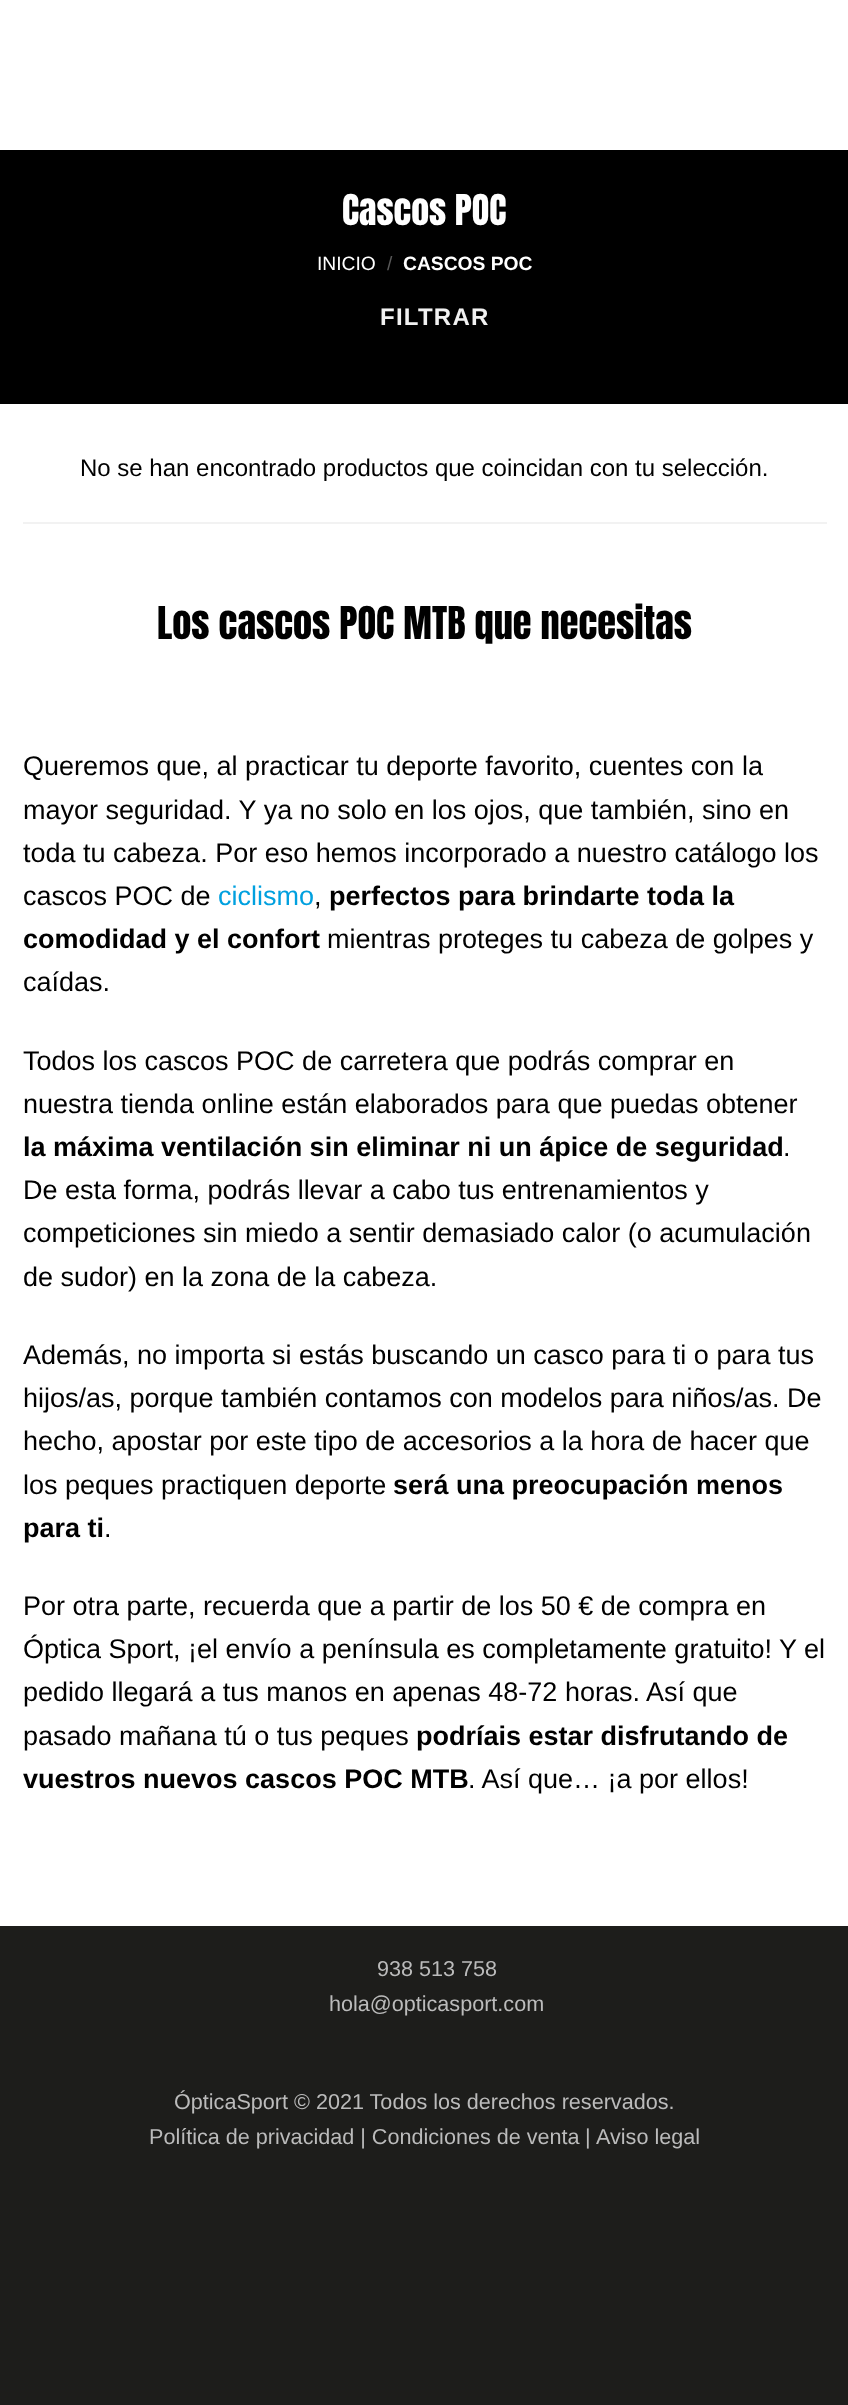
<svg xmlns="http://www.w3.org/2000/svg" xmlns:xlink="http://www.w3.org/1999/xlink" width="848" height="2405" viewBox="0 0 848 2405">
<style>
.cls-1{font:36px Anton;fill:#ffffff}
.cls-2{font:19.25px Liberation Sans;fill:#ffffff}
.cls-3{font:19.25px Liberation Sans;fill:#595959}
.cls-4{font:bold 19.25px Liberation Sans;fill:#ffffff}
.cls-5{font:bold 24px Liberation Sans;letter-spacing:1.25px;fill:#f1f1f1}
.cls-6{font:24px Liberation Sans;fill:#000000}
.cls-7{font:38.4px Anton;fill:#000000}
.cls-8{font:27px Liberation Sans;fill:#000000}
.cls-9{font:27px Liberation Sans;fill:#00a0df}
.cls-10{font:bold 27px Liberation Sans;fill:#000000}
.cls-11{font:21.6px Liberation Sans;fill:#bbbbbb}
</style>
<rect width="100%" height="100%" fill="#1d1d1b"/>
<rect fill="#ffffff" x="0" y="0" width="848" height="1926"/>
<rect fill="#000000" x="0" y="150" width="848" height="254"/>
<rect fill="#f2f2f2" x="23" y="522" width="804" height="2"/>
<text class="cls-1" x="342" y="225">Cascos POC</text>
<text class="cls-2" x="317" y="270">INICIO</text>
<text class="cls-3" x="387" y="270">/</text>
<text class="cls-4" x="403" y="270">CASCOS POC</text>
<text class="cls-5" x="380" y="325">FILTRAR</text>
<text class="cls-6" x="80" y="476">No se han encontrado productos que coincidan con tu selección.</text>
<text class="cls-7" x="157" y="639">Los cascos POC MTB que necesitas</text>
<text class="cls-8"><tspan x="23" y="775">Queremos que, al practicar tu deporte favorito, cuentes con la</tspan><tspan x="23" y="819">mayor seguridad. Y ya no solo en los ojos, que también, sino en</tspan><tspan x="23" y="862">toda tu cabeza. Por eso hemos incorporado a nuestro catálogo los</tspan><tspan x="23" y="905">cascos POC de</tspan></text>
<text class="cls-9" x="218" y="905">ciclismo</text>
<text class="cls-8" x="314" y="905">,</text>
<text class="cls-10" x="329" y="905">perfectos para brindarte toda la</text>
<text class="cls-10" x="23" y="948">comodidad y el confort</text>
<text class="cls-8" x="327" y="948">mientras proteges tu cabeza de golpes y</text>
<text class="cls-8" x="23" y="991">caídas.</text>
<text class="cls-8"><tspan x="23" y="1070">Todos los cascos POC de carretera que podrás comprar en</tspan><tspan x="23" y="1113">nuestra tienda online están elaborados para que puedas obtener</tspan></text>
<text class="cls-10" x="23" y="1156">la máxima ventilación sin eliminar ni un ápice de seguridad</text>
<text class="cls-8" x="783" y="1156">.</text>
<text class="cls-8"><tspan x="23" y="1199">De esta forma, podrás llevar a cabo tus entrenamientos y</tspan><tspan x="23" y="1242">competiciones sin miedo a sentir demasiado calor (o acumulación</tspan><tspan x="23" y="1286">de sudor) en la zona de la cabeza.</tspan></text>
<text class="cls-8"><tspan x="23" y="1364">Además, no importa si estás buscando un casco para ti o para tus</tspan><tspan x="23" y="1407">hijos/as, porque también contamos con modelos para niños/as. De</tspan><tspan x="23" y="1450">hecho, apostar por este tipo de accesorios a la hora de hacer que</tspan><tspan x="23" y="1494">los peques practiquen deporte</tspan></text>
<text class="cls-10" x="393" y="1494">será una preocupación menos</text>
<text class="cls-10" x="23" y="1537">para ti</text>
<text class="cls-8" x="104" y="1537">.</text>
<text class="cls-8"><tspan x="23" y="1615">Por otra parte, recuerda que a partir de los 50 € de compra en</tspan><tspan x="23" y="1658">Óptica Sport, ¡el envío a península es completamente gratuito! Y el</tspan><tspan x="23" y="1701">pedido llegará a tus manos en apenas 48-72 horas. Así que</tspan><tspan x="23" y="1745">pasado mañana tú o tus peques</tspan></text>
<text class="cls-10" x="416" y="1745">podríais estar disfrutando de</text>
<text class="cls-10" x="23" y="1788">vuestros nuevos cascos POC MTB</text>
<text class="cls-8" x="468" y="1788">. Así que… ¡a por ellos!</text>
<text class="cls-11" x="377" y="1976">938 513 758</text>
<text class="cls-11" x="329" y="2011">hola@opticasport.com</text>
<text class="cls-11" x="174" y="2109">ÓpticaSport © 2021 Todos los derechos reservados.</text>
<text class="cls-11" x="149" y="2144">Política de privacidad | Condiciones de venta</text>
<text class="cls-11" x="585" y="2144">|</text>
<text class="cls-11" x="596" y="2144">Aviso legal</text>
</svg>
